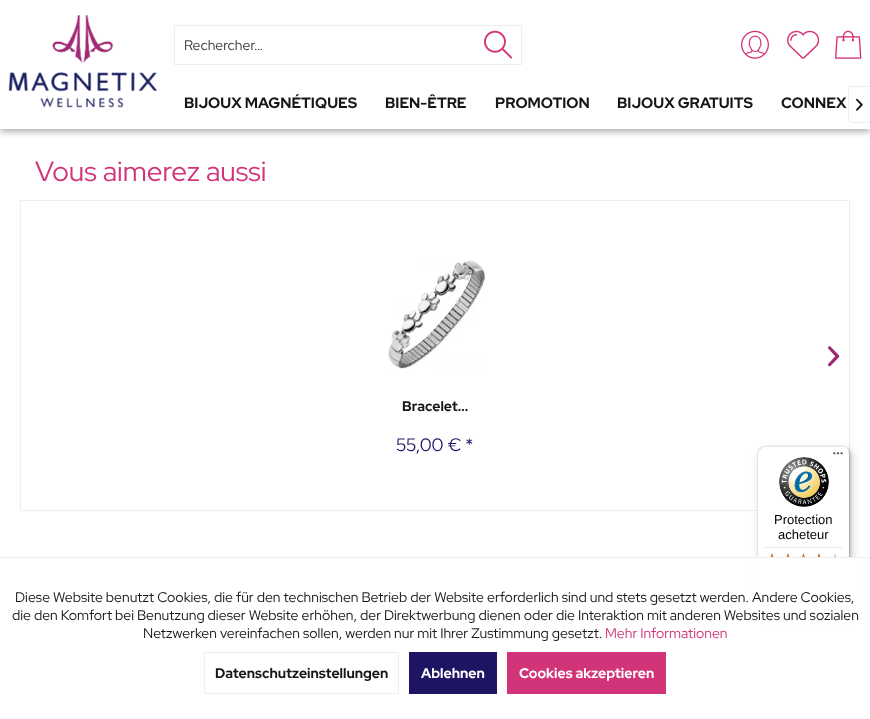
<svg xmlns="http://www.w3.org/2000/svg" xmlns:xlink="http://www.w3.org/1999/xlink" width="870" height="719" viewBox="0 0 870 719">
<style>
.cls-1{font:14px Red Hat Display;fill:#3d3d3d}
.cls-2{font:bold 15px Red Hat Display;fill:#171717}
.cls-3{font:28px Red Hat Display;fill:#d23479}
.cls-4{font:bold 14px Red Hat Display;fill:#171717}
.cls-5{font:18px Red Hat Display;fill:#1e1464}
.cls-6{font:13px Liberation Sans;fill:#000000}
.cls-7{font:14px Red Hat Display;fill:#171717}
.cls-8{font:14px Red Hat Display;fill:#d23479}
.cls-9{font:bold 14px Red Hat Display;fill:#ffffff}
</style>
<rect width="100%" height="100%" fill="#ffffff"/>
<rect fill="#000000" fill-opacity="0.3" filter="blur(3px)" x="0" y="3" width="870" height="129"/>
<rect fill="#ffffff" x="0" y="0" width="870" height="129"/>
<image xlink:href="image0.png" x="8" y="15" width="149" height="93"/>
<rect fill="none" stroke="#eeeeee" x="174.5" y="25.5" width="347" height="39"/>
<image xlink:href="image1.png" x="484" y="30" width="29" height="29"/>
<image xlink:href="image2.png" x="741" y="30" width="28" height="29"/>
<image xlink:href="image3.png" x="787" y="30" width="33" height="29"/>
<image xlink:href="image4.png" x="835" y="30" width="27" height="29"/>
<path fill="#eeeeee" fill-rule="evenodd" d="M851 86H870V123H851C849.5 123 848 121.5 848 120V89C848 87.5 849.5 86 851 86ZM851 87H870V122H851C850 122 849 121 849 120V89C849 88 850 87 851 87Z"/>
<image xlink:href="image5.png" x="856" y="98" width="7" height="13"/>
<rect fill="none" stroke="#eeeeee" x="20.5" y="200.5" width="829" height="310"/>
<image xlink:href="image6.png" x="828" y="346" width="12" height="21"/>
<image xlink:href="image7.png" x="388" y="260" width="98" height="109"/>
<rect fill="#000000" fill-opacity="0.15" filter="blur(4px)" x="760" y="449" width="93" height="170" rx="8"/>
<rect fill="#000000" fill-opacity="0.15" filter="blur(1px)" x="758" y="447" width="93" height="170" rx="8"/>
<rect fill="#ffffff" x="757" y="446" width="93" height="170" rx="8"/>
<path fill="#e5e5e5" d="M766 447H843C845 447 847 448 849 450C847 448 845 446 842 446H765C761 446 757 450 757 454V608C757 611 759 613 761 615C759 613 758 611 758 609V455C758 451 762 447 766 447Z"/>
<path fill="#000000" fill-opacity="0.2" d="M758 612C760 614 762 616 765 616H842C846 616 850 612 850 608V454C850 451 848 449 846 447C848 449 849 451 849 453V607C849 611 845 615 841 615H764C762 615 760 614 758 612Z"/>
<path fill="#323232" fill-opacity="0.2" d="M759 613C760 615 763 616 765 616H842C846 616 850 612 850 608V454C850 452 849 449 847 448C848 449 849 451 849 453V607C849 612 846 615 841 615H764C762 615 760 614 759 613Z"/>
<image xlink:href="image8.png" x="833" y="452" width="10" height="3"/>
<image xlink:href="image9.png" x="779" y="457" width="50" height="50"/>
<rect fill="#e5e5e5" x="765" y="547" width="77" height="1"/>
<image xlink:href="image10.png" x="770" y="553" width="4" height="4"/>
<image xlink:href="image10.png" x="786" y="553" width="4" height="4"/>
<image xlink:href="image11.png" x="802" y="553" width="3" height="4"/>
<image xlink:href="image10.png" x="817" y="553" width="4" height="4"/>
<image xlink:href="image10.png" x="833" y="553" width="4" height="4"/>
<image xlink:href="image12.png" x="770" y="553" width="4" height="4"/>
<image xlink:href="image12.png" x="786" y="553" width="4" height="4"/>
<image xlink:href="image13.png" x="802" y="553" width="3" height="4"/>
<image xlink:href="image12.png" x="817" y="553" width="4" height="4"/>
<rect fill="#ffffff" x="754" y="558" width="105" height="67"/>
<rect fill="#eeeeee" x="0" y="557" width="870" height="1"/>
<rect fill="none" stroke="#eeeeee" x="204.5" y="652.5" width="194" height="41"/>
<rect fill="#1e1464" x="409" y="652" width="88" height="42"/>
<rect fill="#d23479" x="507" y="652" width="159" height="42"/>
<text class="cls-1" x="184" y="50">Rechercher…</text>
<text class="cls-2" x="184" y="108">BIJOUX MAGNÉTIQUES</text>
<text class="cls-2" x="385" y="108">BIEN-ÊTRE</text>
<text class="cls-2" x="495" y="108">PROMOTION</text>
<text class="cls-2" x="617" y="108">BIJOUX GRATUITS</text>
<text class="cls-2" x="781" y="108">CONNEX</text>
<text class="cls-3" x="35" y="181">Vous aimerez aussi</text>
<text class="cls-4" x="402" y="411">Bracelet...</text>
<text class="cls-5" x="396" y="451">55,00 € *</text>
<text class="cls-6" x="774" y="524">Protection</text>
<text class="cls-6" x="778" y="539">acheteur</text>
<text class="cls-7" x="15" y="602">Diese Website benutzt Cookies, die für den technischen Betrieb der Website erforderlich sind und stets gesetzt werden. Andere Cookies,</text>
<text class="cls-7" x="12" y="620">die den Komfort bei Benutzung dieser Website erhöhen, der Direktwerbung dienen oder die Interaktion mit anderen Websites und sozialen</text>
<text class="cls-7" x="143" y="638">Netzwerken vereinfachen sollen, werden nur mit Ihrer Zustimmung gesetzt.</text>
<text class="cls-8" x="605" y="638">Mehr Informationen</text>
<text class="cls-4" x="215" y="678">Datenschutzeinstellungen</text>
<text class="cls-9" x="421" y="678">Ablehnen</text>
<text class="cls-9" x="519" y="678">Cookies akzeptieren</text>
</svg>
